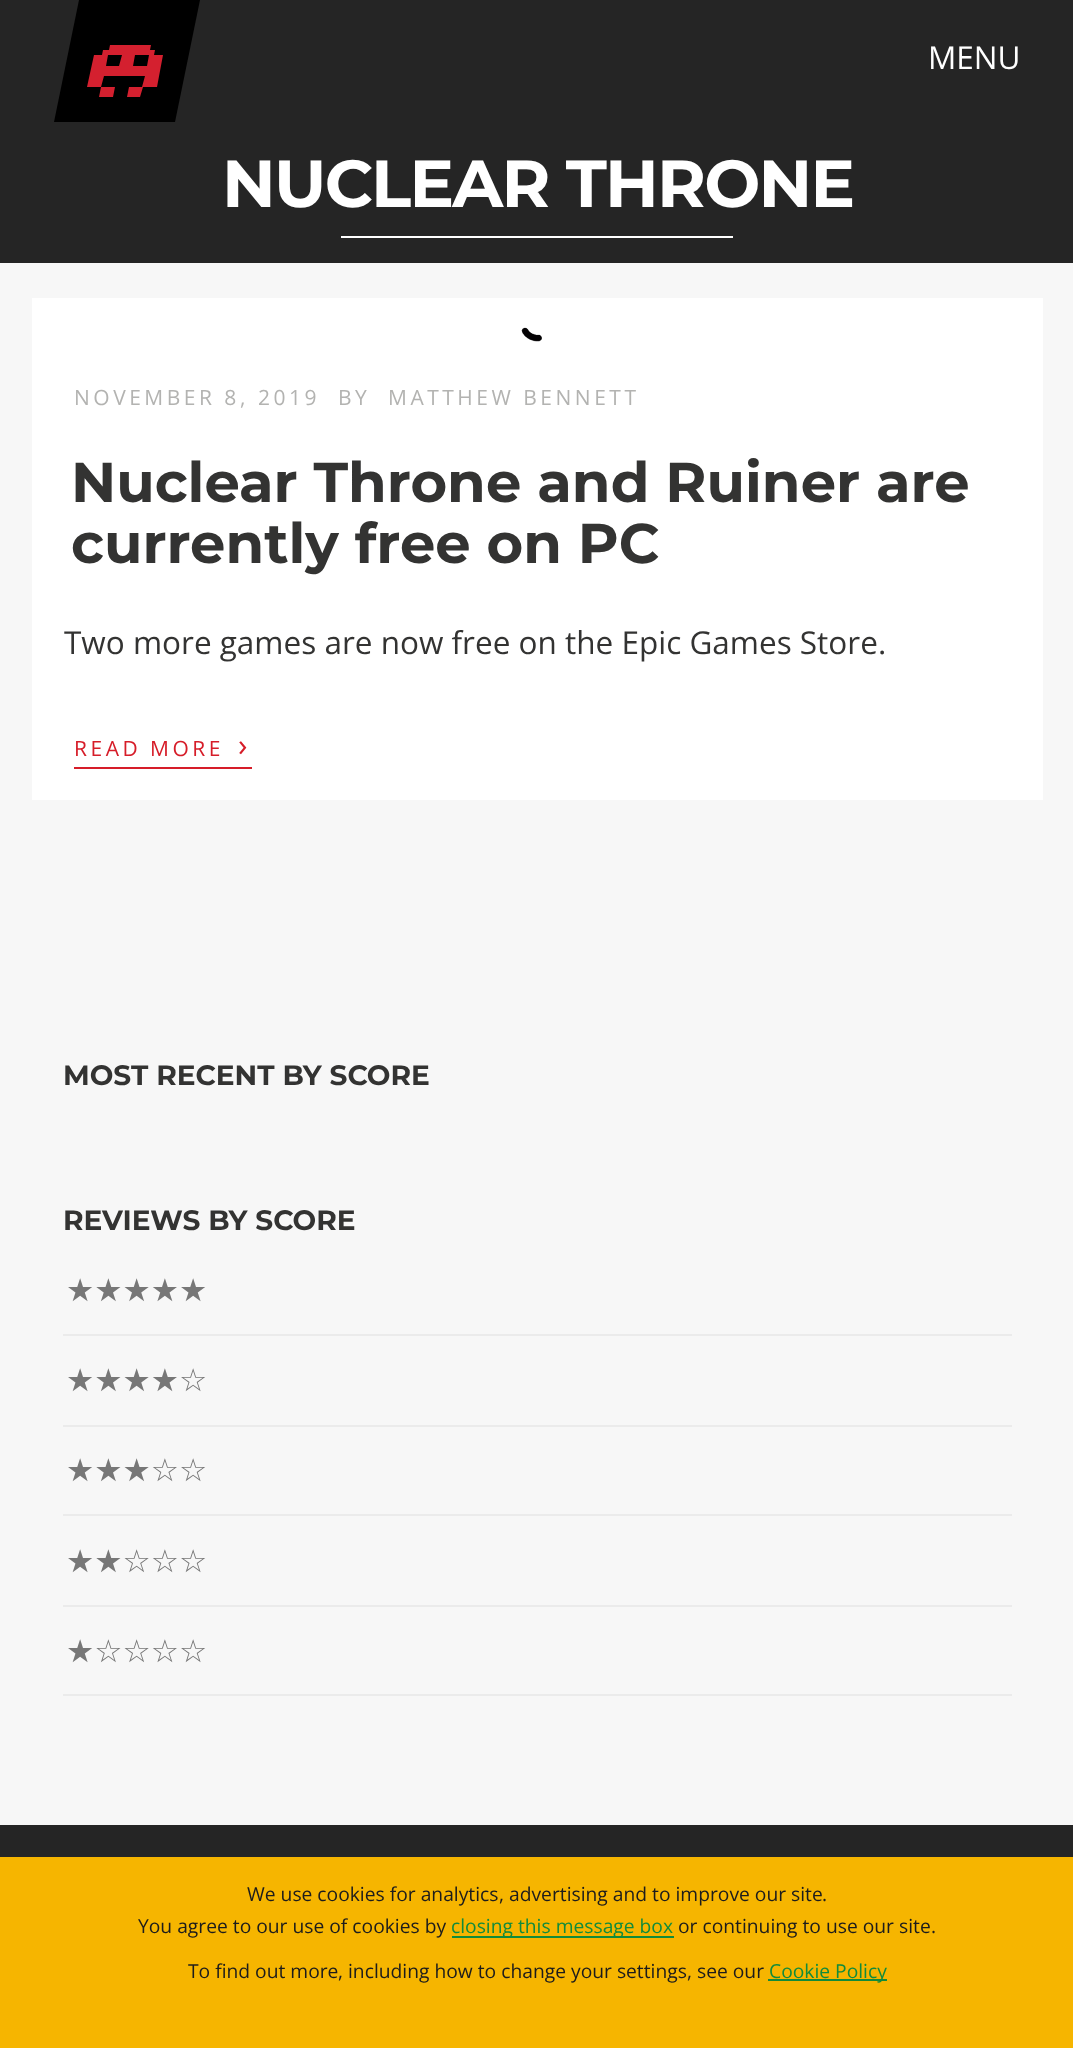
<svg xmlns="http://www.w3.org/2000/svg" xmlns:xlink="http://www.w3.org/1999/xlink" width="1073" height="2048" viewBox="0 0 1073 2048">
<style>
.cls-1{font:31.5px Open Sans;fill:#ffffff}
.cls-2{font:bold 66.5px Montserrat;letter-spacing:-1.75px;fill:#ffffff}
.cls-3{font:21px Open Sans;letter-spacing:3.5px;fill:#b3b3b1}
.cls-4{font:21px 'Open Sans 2';letter-spacing:3.5px;fill:#b3b3b1}
.cls-5{font:bold 56px Montserrat;fill:#333332}
.cls-6{font:31.5px Open Sans;fill:#333332}
.cls-7{font:31.5px 'Open Sans 2';fill:#333332}
.cls-8{font:21px Open Sans;letter-spacing:3.5px;fill:#d61d29}
.cls-9{font:31.5px 'Open Sans 2';letter-spacing:3.5px;fill:#d61d29}
.cls-10{font:bold 28px Montserrat;fill:#333332}
.cls-11{font:31.5px DejaVu Sans;fill:#777777}
.cls-12{font:19.25px Open Sans;fill:#1c1c1c}
.cls-13{font:19.25px 'Open Sans 2';fill:#1c1c1c}
.cls-14{font:19.25px Open Sans;fill:#118b3b}
</style>
<rect width="100%" height="100%" fill="#f7f7f7"/>
<rect fill="#252525" x="0" y="0" width="1073" height="263"/>
<path fill="#000000" fill-rule="evenodd" d="M79 0L54 122H175L200 0Z"/>
<path fill="#d4202f" fill-rule="evenodd" d="M113 97L115 87H101L99 97ZM127 97H140L143 87H129ZM154 55L155 50H150L151 45H110L109 50H103L102 55H94L87 87H101L104 76H145L142 87H157L163 55ZM119 66H106L108 55H122ZM147 66H133L135 55H149Z"/>
<rect fill="#ffffff" x="341" y="236" width="392" height="2"/>
<rect fill="#ffffff" x="32" y="298" width="1011" height="502"/>
<image xlink:href="image0.png" x="521" y="327" width="21" height="15"/>
<rect fill="#d61d29" x="74" y="767" width="178" height="2"/>
<rect fill="#ebebeb" x="63" y="1334" width="949" height="2"/>
<rect fill="#ebebeb" x="63" y="1425" width="949" height="2"/>
<rect fill="#ebebeb" x="63" y="1514" width="949" height="2"/>
<rect fill="#ebebeb" x="63" y="1605" width="949" height="2"/>
<rect fill="#ebebeb" x="63" y="1694" width="949" height="2"/>
<rect fill="#252525" x="0" y="1825" width="1073" height="32"/>
<rect fill="#f6b500" x="0" y="1857" width="1073" height="191"/>
<rect fill="#118b3b" x="452" y="1936" width="222" height="2"/>
<rect fill="#118b3b" x="768" y="1979" width="119" height="2"/>
<text class="cls-1" x="928" y="69">MENU</text>
<text class="cls-2" x="222" y="207">NUCLEAR THRONE</text>
<text class="cls-3" x="74" y="405">NOVEMBER 8</text>
<text class="cls-4" x="240" y="405">,</text>
<text class="cls-3" x="258" y="405">2019</text>
<text class="cls-3" x="338" y="405">BY</text>
<text class="cls-3" x="388" y="405">MATTHEW BENNETT</text>
<text class="cls-5"><tspan x="71" y="502">Nuclear Throne and Ruiner are</tspan><tspan x="71" y="563">currently free on PC</tspan></text>
<text class="cls-6" x="64" y="654">Two more games are now free on the Epic Games Store</text>
<text class="cls-7" x="878" y="654">.</text>
<text class="cls-8" x="74" y="756">READ MORE</text>
<text class="cls-9" x="238" y="756">›</text>
<text class="cls-10" x="63" y="1085">MOST RECENT BY SCORE</text>
<text class="cls-10" x="63" y="1230">REVIEWS BY SCORE</text>
<text class="cls-11" x="66" y="1301">★★★★★</text>
<text class="cls-11" x="66" y="1391">★★★★☆</text>
<text class="cls-11" x="66" y="1481">★★★☆☆</text>
<text class="cls-11" x="66" y="1572">★★☆☆☆</text>
<text class="cls-11" x="66" y="1662">★☆☆☆☆</text>
<text class="cls-12" x="247" y="1901">We use cookies for analytics</text>
<text class="cls-13" x="499" y="1901">,</text>
<text class="cls-12" x="509" y="1901">advertising and to improve our site</text>
<text class="cls-13" x="822" y="1901">.</text>
<text class="cls-12" x="138" y="1933">You agree to our use of cookies by</text>
<text class="cls-14" x="451" y="1933">closing this message box</text>
<text class="cls-12" x="678" y="1933">or continuing to use our site</text>
<text class="cls-13" x="931" y="1933">.</text>
<text class="cls-12" x="188" y="1978">To find out more</text>
<text class="cls-13" x="338" y="1978">,</text>
<text class="cls-12" x="348" y="1978">including how to change your settings</text>
<text class="cls-13" x="687" y="1978">,</text>
<text class="cls-12" x="697" y="1978">see our</text>
<text class="cls-14" x="769" y="1978">Cookie Policy</text>
</svg>
